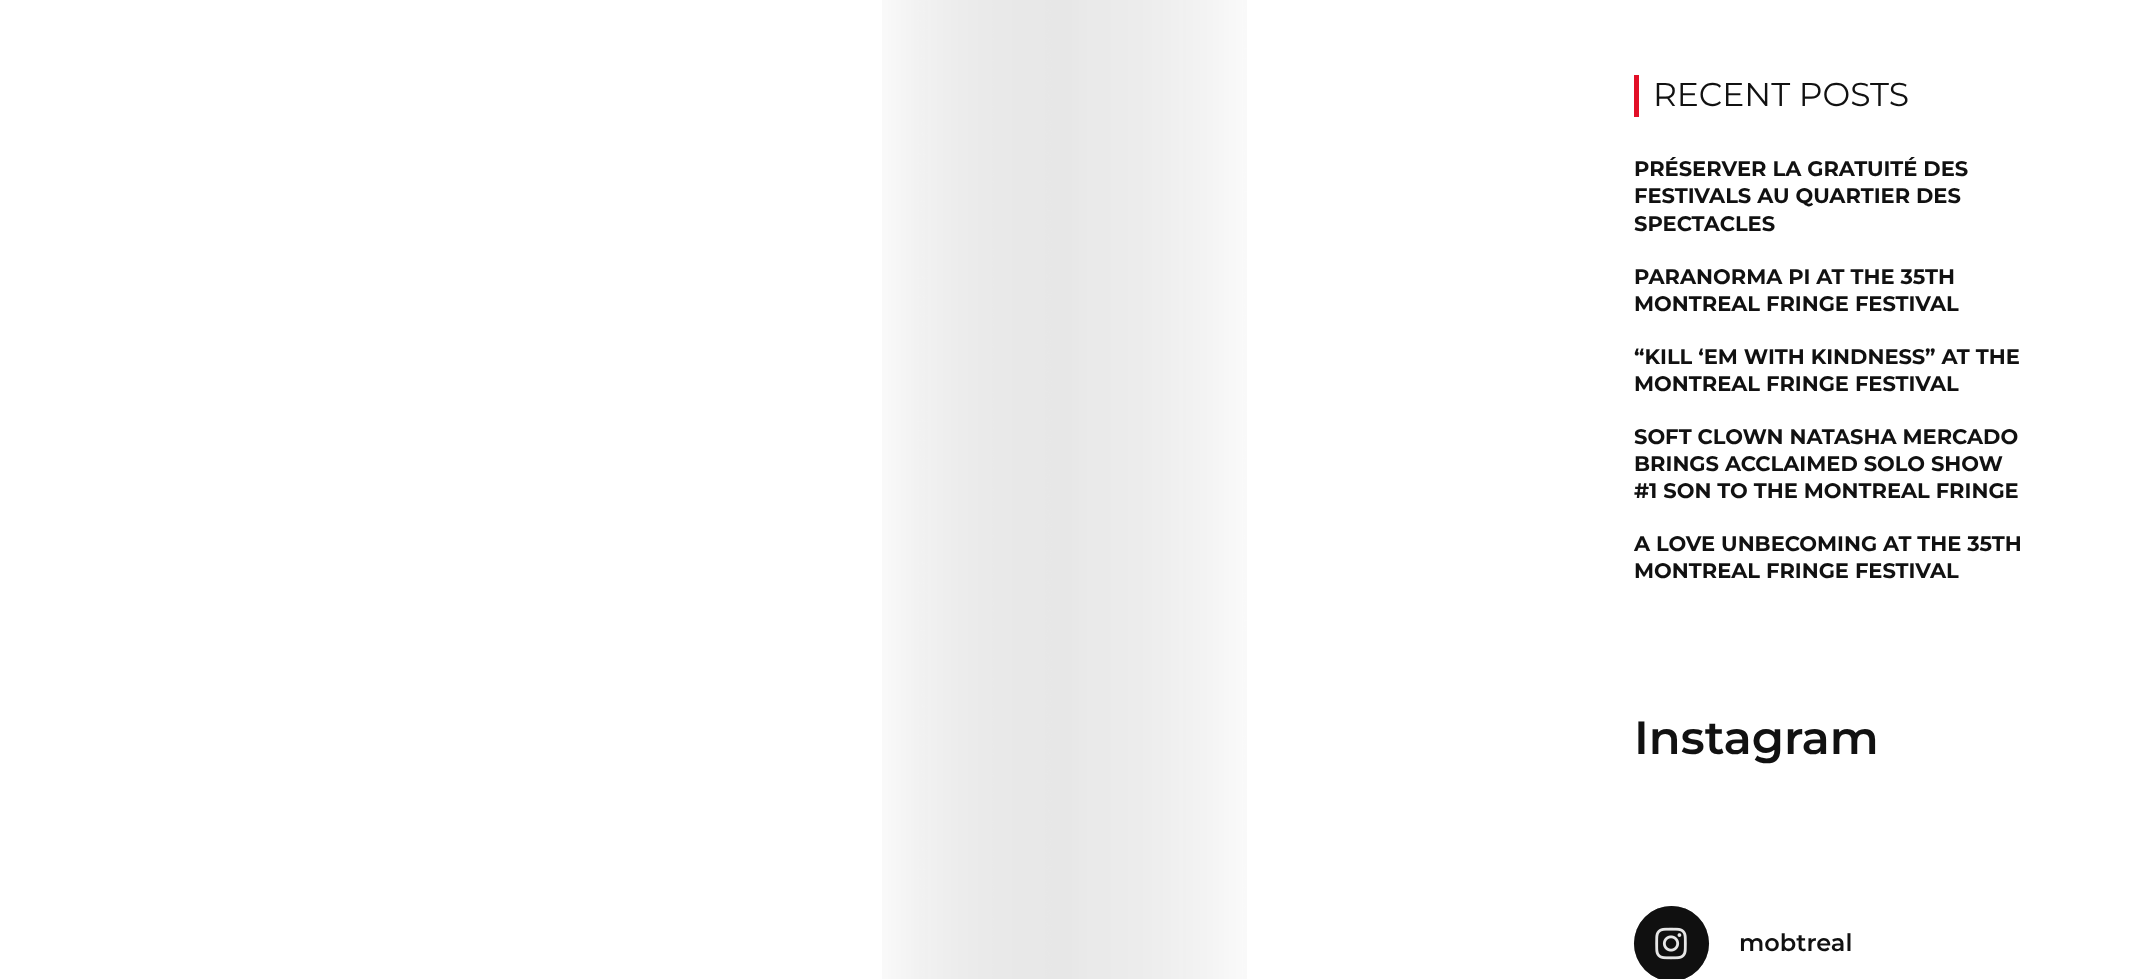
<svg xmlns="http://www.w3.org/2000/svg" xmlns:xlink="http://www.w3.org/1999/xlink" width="2133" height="979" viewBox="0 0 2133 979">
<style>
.cls-1{font:33px Montserrat;fill:#111111}
.cls-2{font:bold 21px Montserrat;fill:#111111}
.cls-3{font:600 46.5px Montserrat;fill:#111111}
.cls-4{font:600 24px Montserrat;fill:#111111}
</style>
<rect width="100%" height="100%" fill="#ffffff"/>
<image xlink:href="image0.png" x="882" y="0" width="365" height="979"/>
<rect fill="#e20f27" x="1634" y="75" width="5" height="42"/>
<circle fill="#333333" cx="1671.5" cy="943.5" r="37.5"/>
<circle fill="#000000" fill-opacity="0.68" cx="1671.5" cy="943.5" r="37.5"/>
<image xlink:href="image1.png" x="1655" y="927" width="32" height="33"/>
<text class="cls-1" x="1653" y="106">RECENT POSTS</text>
<text class="cls-2"><tspan x="1634" y="176">PRÉSERVER LA GRATUITÉ DES</tspan><tspan x="1634" y="203">FESTIVALS AU QUARTIER DES</tspan><tspan x="1634" y="231">SPECTACLES</tspan></text>
<text class="cls-2"><tspan x="1634" y="284">PARANORMA PI AT THE 35TH</tspan><tspan x="1634" y="311">MONTREAL FRINGE FESTIVAL</tspan></text>
<text class="cls-2"><tspan x="1634" y="364">“KILL ‘EM WITH KINDNESS” AT THE</tspan><tspan x="1634" y="391">MONTREAL FRINGE FESTIVAL</tspan></text>
<text class="cls-2"><tspan x="1634" y="444">SOFT CLOWN NATASHA MERCADO</tspan><tspan x="1634" y="471">BRINGS ACCLAIMED SOLO SHOW</tspan><tspan x="1634" y="498">#1 SON TO THE MONTREAL FRINGE</tspan></text>
<text class="cls-2"><tspan x="1634" y="551">A LOVE UNBECOMING AT THE 35TH</tspan><tspan x="1634" y="578">MONTREAL FRINGE FESTIVAL</tspan></text>
<text class="cls-3" x="1634" y="754">Instagram</text>
<text class="cls-4" x="1739" y="951">mobtreal</text>
</svg>
